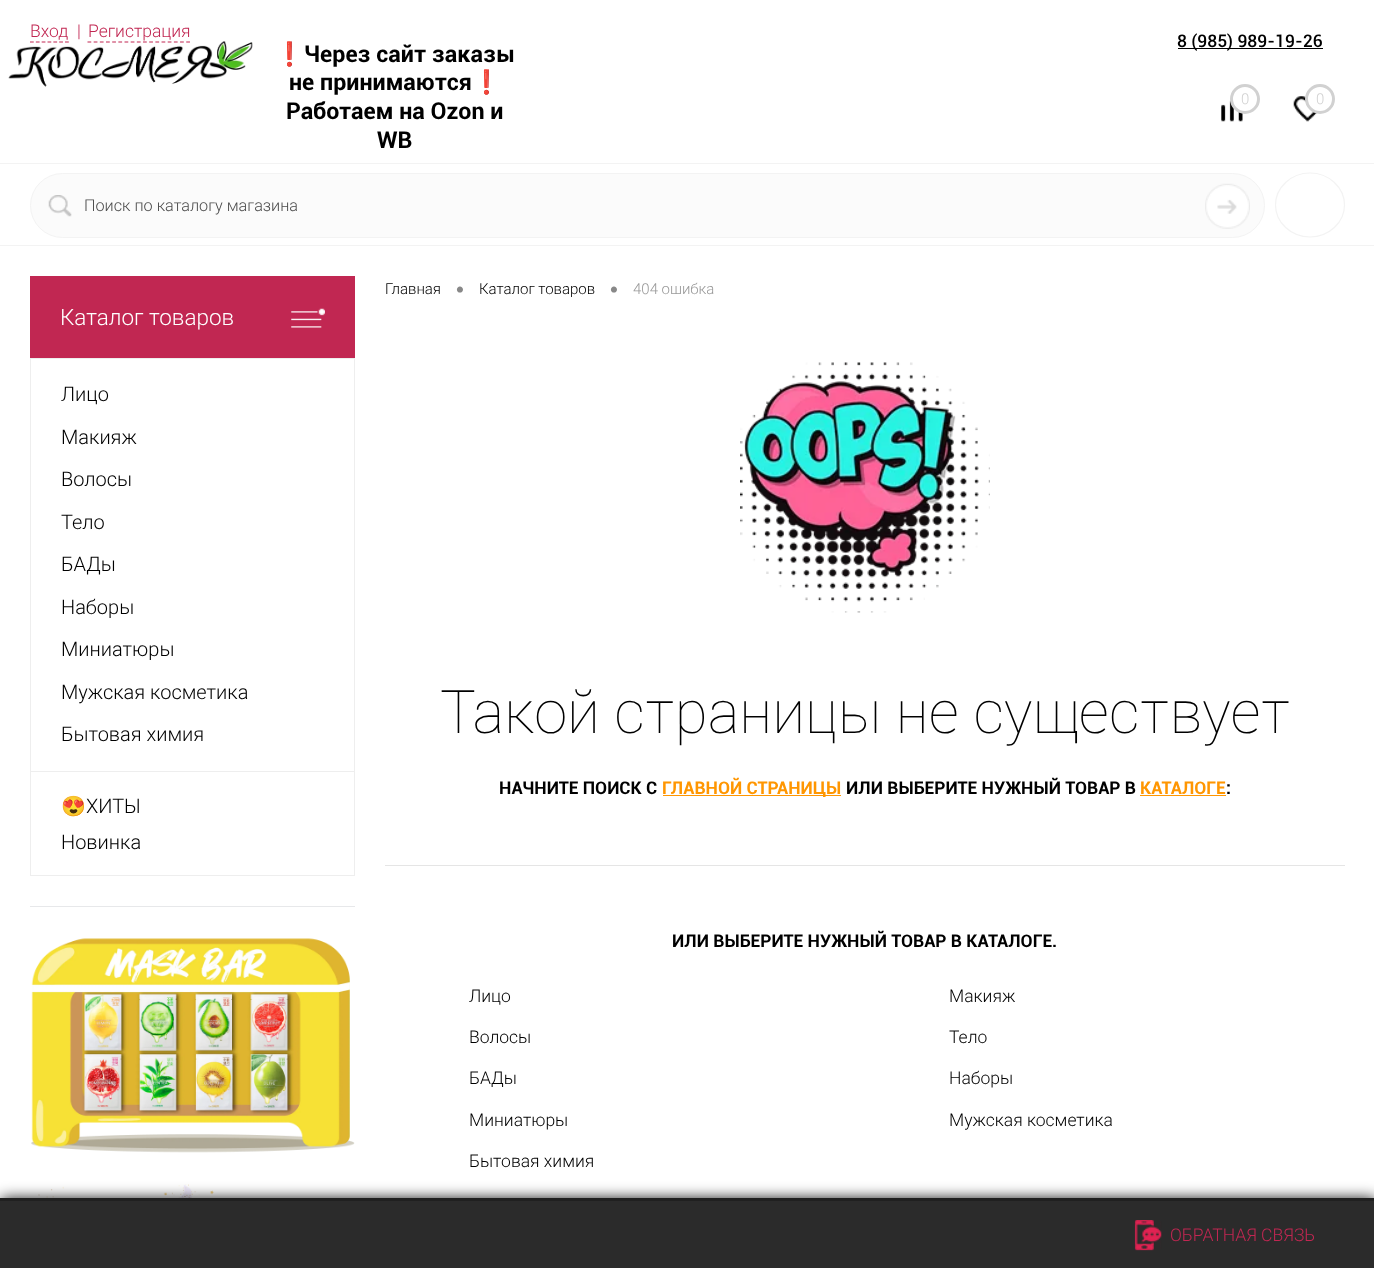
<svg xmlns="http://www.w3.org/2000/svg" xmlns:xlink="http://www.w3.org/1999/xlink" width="1374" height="1268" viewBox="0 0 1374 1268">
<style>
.cls-1{font:300 17.5px Roboto;fill:#c12752}
.cls-2{font:300 16.25px Roboto;fill:#4b4b4b}
.cls-3{font:23.25px Noto Color Emoji;fill:#000000}
.cls-4{font:bold 23.25px Roboto;fill:#000000}
.cls-5{font:500 17.5px Roboto;fill:#000000}
.cls-6{font:300 15px Roboto;fill:#d1d1d1}
.cls-7{font:300 22.5px Roboto;fill:#ffffff}
.cls-8{font:300 20px Roboto;fill:#000000}
.cls-9{font:20px Noto Color Emoji;fill:#000000}
.cls-10{font:300 15px Roboto;fill:#000000}
.cls-11{font:22.5px Liberation Sans;fill:#888888}
.cls-12{font:300 15px Roboto;fill:#999999}
.cls-13{font:100 60px Roboto;fill:#000000}
.cls-14{font:bold 17.5px Roboto;fill:#000000}
.cls-15{font:bold 17.5px Roboto;fill:#ff9601}
.cls-16{font:300 17.5px Roboto;fill:#000000}
</style>
<rect width="100%" height="100%" fill="#ffffff"/>
<rect fill="#f3f3f3" x="0" y="163" width="1374" height="1"/>
<image xlink:href="image2.png" x="8" y="41" width="245" height="46"/>
<path fill="none" stroke="#c12752" stroke-width="1.2" stroke-dasharray="3.75 2.09" d="M30 42H69"/>
<path fill="none" stroke="#c12752" stroke-width="1.2" stroke-dasharray="3.75 2.42" d="M87.5 42H190"/>
<rect fill="#fbfbfb" stroke="#f3f3f3" x="30.5" y="173.5" width="1234" height="64" rx="32"/>
<image xlink:href="image0.png" x="48" y="195" width="24" height="22"/>
<image xlink:href="image1.png" x="1205" y="183" width="45" height="46"/>
<rect fill="#000000" x="1178" y="48" width="145" height="1"/>
<image xlink:href="image3.png" x="1221" y="100" width="22" height="22"/>
<circle fill="#ffffff" stroke="#d1d1d1" stroke-width="3" cx="1245" cy="99" r="13.5"/>
<image xlink:href="image4.png" x="1293" y="96" width="24" height="26"/>
<circle fill="#ffffff" stroke="#d1d1d1" stroke-width="3" cx="1320" cy="99" r="13.5"/>
<rect fill="#f3f3f3" x="0" y="245" width="1374" height="1"/>
<path fill="none" stroke="#f3f3f3" stroke-width="1.2" d="M1310 173C1329 173 1344.5 187.5 1344.5 205C1344.5 222.5 1329 237 1310 237C1291 237 1275.5 222.5 1275.5 205C1275.5 187.5 1291 173 1310 173Z"/>
<rect fill="#c12752" x="30" y="276" width="325" height="82"/>
<image xlink:href="image5.png" x="291" y="308" width="34" height="20"/>
<rect fill="#eeeeee" x="30" y="358" width="325" height="1"/>
<rect fill="#eeeeee" x="354" y="358" width="1" height="413"/>
<rect fill="#eeeeee" x="30" y="358" width="1" height="413"/>
<rect fill="none" stroke="#eeeeee" x="30.5" y="771.5" width="324" height="104"/>
<rect fill="#e7e8ea" x="30" y="906" width="325" height="1"/>
<image xlink:href="image6.png" x="31" y="938" width="324" height="215"/>
<image xlink:href="image7.png" x="38" y="1184" width="176" height="14"/>
<image xlink:href="image8.png" x="740" y="362" width="250" height="251"/>
<rect fill="#ff9601" x="663" y="795" width="178" height="1"/>
<rect fill="#ff9601" x="1140" y="795" width="86" height="1"/>
<rect fill="#e5e5e5" x="385" y="865" width="960" height="1"/>
<rect fill="#000000" filter="blur(7.5px)" x="1" y="1199" width="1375" height="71"/>
<rect fill="#2b2b2b" x="0" y="1201" width="1374" height="67"/>
<rect fill="#202020" x="0" y="1198" width="1374" height="3"/>
<image xlink:href="image9.png" x="1134" y="1220" width="28" height="31"/>
<text class="cls-1" x="30" y="37">Вход</text>
<text class="cls-1" x="77" y="37">|</text>
<text class="cls-1" x="88" y="37">Регистрация</text>
<text class="cls-2" x="84" y="211">Поиск по каталогу магазина</text>
<text class="cls-3" x="275" y="62">❗</text>
<text class="cls-4" x="304" y="62">Через сайт заказы</text>
<text class="cls-4" x="289" y="90">не принимаются</text>
<text class="cls-3" x="472" y="90">❗</text>
<text class="cls-4" x="286" y="119">Работаем на Ozon и</text>
<text class="cls-4" x="377" y="148">WB</text>
<text class="cls-5" x="1177" y="47">8 (985) 989-19-26</text>
<text class="cls-6" x="1241" y="104">0</text>
<text class="cls-6" x="1316" y="104">0</text>
<text class="cls-7" x="60" y="325">Каталог товаров</text>
<text class="cls-8" x="61" y="401">Лицо</text>
<text class="cls-8" x="61" y="444">Макияж</text>
<text class="cls-8" x="61" y="486">Волосы</text>
<text class="cls-8" x="61" y="529">Тело</text>
<text class="cls-8" x="61" y="571">БАДы</text>
<text class="cls-8" x="61" y="614">Наборы</text>
<text class="cls-8" x="61" y="656">Миниатюры</text>
<text class="cls-8" x="61" y="699">Мужская косметика</text>
<text class="cls-8" x="61" y="741">Бытовая химия</text>
<text class="cls-9" x="61" y="813">😍</text>
<text class="cls-8" x="86" y="813">ХИТЫ</text>
<text class="cls-8" x="61" y="849">Новинка</text>
<text class="cls-10" x="385" y="294">Главная</text>
<text class="cls-11" x="456" y="297">•</text>
<text class="cls-10" x="479" y="294">Каталог товаров</text>
<text class="cls-11" x="610" y="297">•</text>
<text class="cls-12" x="633" y="294">404 ошибка</text>
<text class="cls-13" x="440" y="733">Такой страницы не существует</text>
<text class="cls-14" x="499" y="794">НАЧНИТЕ ПОИСК С</text>
<text class="cls-15" x="662" y="794">ГЛАВНОЙ СТРАНИЦЫ</text>
<text class="cls-14" x="846" y="794">ИЛИ ВЫБЕРИТЕ НУЖНЫЙ ТОВАР В</text>
<text class="cls-15" x="1140" y="794">КАТАЛОГЕ</text>
<text class="cls-14" x="1226" y="794">:</text>
<text class="cls-14" x="672" y="947">ИЛИ ВЫБЕРИТЕ НУЖНЫЙ ТОВАР В КАТАЛОГЕ.</text>
<text class="cls-16" x="469" y="1002">Лицо</text>
<text class="cls-16" x="949" y="1002">Макияж</text>
<text class="cls-16" x="469" y="1043">Волосы</text>
<text class="cls-16" x="949" y="1043">Тело</text>
<text class="cls-16" x="469" y="1084">БАДы</text>
<text class="cls-16" x="949" y="1084">Наборы</text>
<text class="cls-16" x="469" y="1126">Миниатюры</text>
<text class="cls-16" x="949" y="1126">Мужская косметика</text>
<text class="cls-16" x="469" y="1167">Бытовая химия</text>
<text class="cls-1" x="1170" y="1241">ОБРАТНАЯ СВЯЗЬ</text>
</svg>
